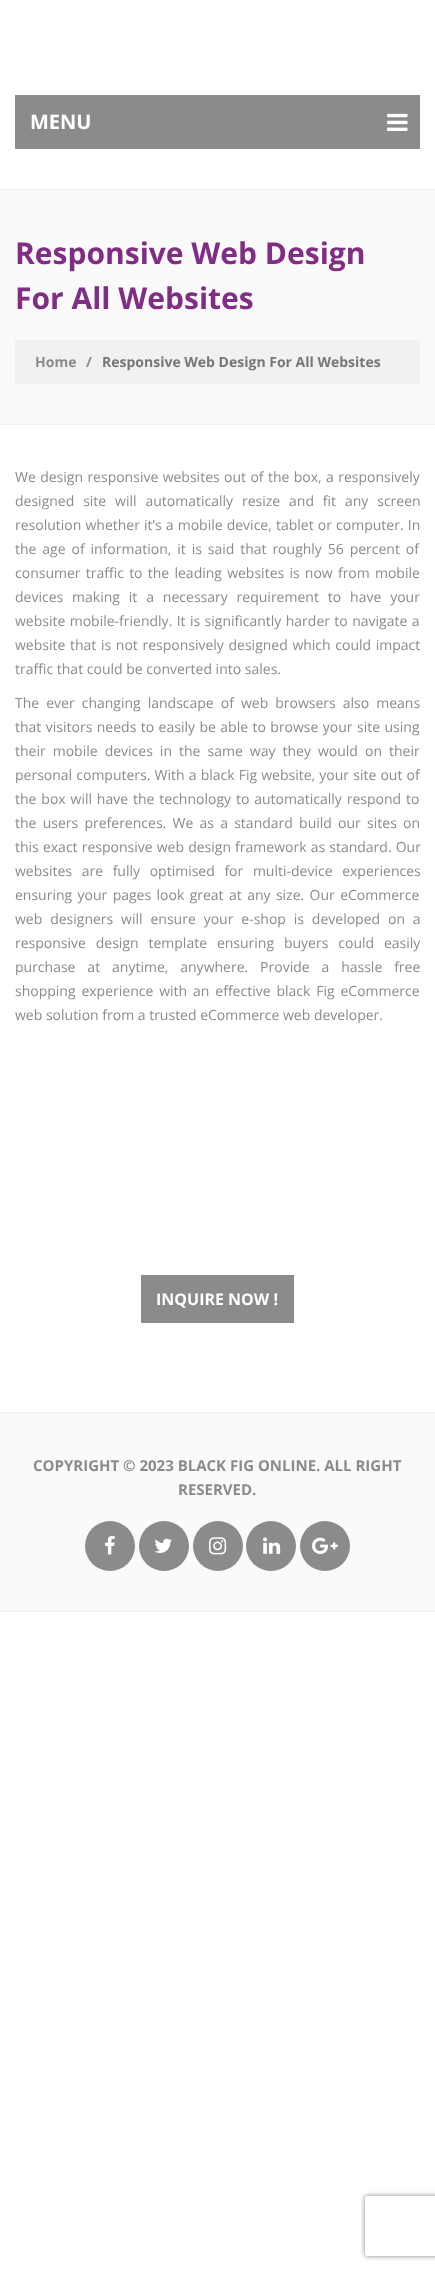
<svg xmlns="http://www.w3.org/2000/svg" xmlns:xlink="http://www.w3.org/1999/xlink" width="435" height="2270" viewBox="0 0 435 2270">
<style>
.cls-1{font:bold 20px Open Sans;fill:#ffffff}
.cls-2{font:bold 30px Open Sans;fill:#812d84}
.cls-3{font:bold 14px Open Sans;fill:#8b8b8b}
.cls-4{font:bold 14px Open Sans;fill:#777777}
.cls-5{font:14px Open Sans;fill:#8b8b8b}
.cls-6{font:bold 16px Open Sans;fill:#ffffff}
.cls-7{font:bold 15px Open Sans;fill:#8b8b8b}
</style>
<defs>
<clipPath id="clip1"><path d="M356 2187H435V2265H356ZM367 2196H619C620 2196 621 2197 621 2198V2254C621 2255 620 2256 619 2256H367C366 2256 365 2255 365 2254V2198C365 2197 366 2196 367 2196Z" clip-rule="evenodd"/></clipPath>
</defs>
<rect width="100%" height="100%" fill="#ffffff"/>
<rect fill="#8b8b8b" x="15" y="95" width="405" height="54"/>
<image xlink:href="image0.png" x="387" y="113" width="21" height="18"/>
<rect fill="#fafafa" x="0" y="190" width="435" height="234"/>
<rect fill="#f1f1f1" x="0" y="189" width="435" height="1"/>
<rect fill="#f1f1f1" x="0" y="424" width="435" height="1"/>
<rect fill="#f1f1f1" x="15" y="340" width="405" height="44"/>
<rect fill="#8b8b8b" x="141" y="1275" width="153" height="48"/>
<rect fill="#fafafa" x="0" y="1413" width="435" height="198"/>
<rect fill="#f1f1f1" x="0" y="1412" width="435" height="1"/>
<rect fill="#f1f1f1" x="0" y="1611" width="435" height="1"/>
<circle fill="#8b8b8b" cx="110" cy="1546" r="25"/>
<image xlink:href="image1.png" x="105" y="1535" width="10" height="20"/>
<circle fill="#8b8b8b" cx="164" cy="1546" r="25"/>
<image xlink:href="image2.png" x="154" y="1538" width="18" height="15"/>
<circle fill="#8b8b8b" cx="218" cy="1546" r="25"/>
<image xlink:href="image3.png" x="209" y="1537" width="18" height="18"/>
<circle fill="#8b8b8b" cx="271" cy="1546" r="25"/>
<image xlink:href="image4.png" x="263" y="1537" width="18" height="17"/>
<circle fill="#8b8b8b" cx="325" cy="1546" r="25"/>
<image xlink:href="image5.png" x="312" y="1537" width="26" height="17"/>
<g clip-path="url(#clip1)">
<rect fill="#808080" filter="blur(2.5px)" x="365" y="2196" width="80" height="60" rx="2"/>
</g>
<text class="cls-1" x="30" y="129">MENU</text>
<text class="cls-2"><tspan x="15" y="264">Responsive Web Design</tspan><tspan x="15" y="309">For All Websites</tspan></text>
<text class="cls-3" x="35" y="367">Home</text>
<text class="cls-3" x="86" y="367">/</text>
<text class="cls-4" x="102" y="367">Responsive Web Design For All Websites</text>
<text class="cls-5"><tspan x="15" y="482" word-spacing="0.75">We design responsive websites out of the box, a responsively</tspan><tspan x="15" y="506" word-spacing="5.25">designed site will automatically resize and fit any screen</tspan><tspan x="15" y="530" word-spacing="0.5">resolution whether it’s a mobile device, tablet or computer. In</tspan><tspan x="15" y="554" word-spacing="2.25">the age of information, it is said that roughly 56 percent of</tspan><tspan x="15" y="578" word-spacing="1.6">consumer traffic to the leading websites is now from mobile</tspan><tspan x="15" y="602" word-spacing="5.25">devices making it a necessary requirement to have your</tspan><tspan x="15" y="626" word-spacing="0.75">website mobile-friendly. It is significantly harder to navigate a</tspan><tspan x="15" y="650" word-spacing="1">website that is not responsively designed which could impact</tspan><tspan x="15" y="674">traffic that could be converted into sales.</tspan></text>
<text class="cls-5"><tspan x="15" y="708" word-spacing="3.4">The ever changing landscape of web browsers also means</tspan><tspan x="15" y="732" word-spacing="0.8">that visitors needs to easily be able to browse your site using</tspan><tspan x="15" y="756" word-spacing="3.4">their mobile devices in the same way they would on their</tspan><tspan x="15" y="780" word-spacing="0.5">personal computers. With a black Fig website, your site out of</tspan><tspan x="15" y="804" word-spacing="1.25">the box will have the technology to automatically respond to</tspan><tspan x="15" y="828" word-spacing="2.6">the users preferences. We as a standard build our sites on</tspan><tspan x="15" y="852" word-spacing="0.5">this exact responsive web design framework as standard. Our</tspan><tspan x="15" y="876" word-spacing="6">websites are fully optimised for multi-device experiences</tspan><tspan x="15" y="900" word-spacing="1.75">ensuring your pages look great at any size. Our eCommerce</tspan><tspan x="15" y="924" word-spacing="4.25">web designers will ensure your e-shop is developed on a</tspan><tspan x="15" y="948" word-spacing="6.25">responsive design template ensuring buyers could easily</tspan><tspan x="15" y="972" word-spacing="8.25">purchase at anytime, anywhere. Provide a hassle free</tspan><tspan x="15" y="996" word-spacing="2.25">shopping experience with an effective black Fig eCommerce</tspan><tspan x="15" y="1020">web solution from a trusted eCommerce web developer.</tspan></text>
<text class="cls-6" x="156" y="1305">INQUIRE NOW !</text>
<text class="cls-7" x="33" y="1471">COPYRIGHT © 2023 BLACK FIG ONLINE. ALL RIGHT</text>
<text class="cls-7" x="178" y="1495">RESERVED.</text>
</svg>
